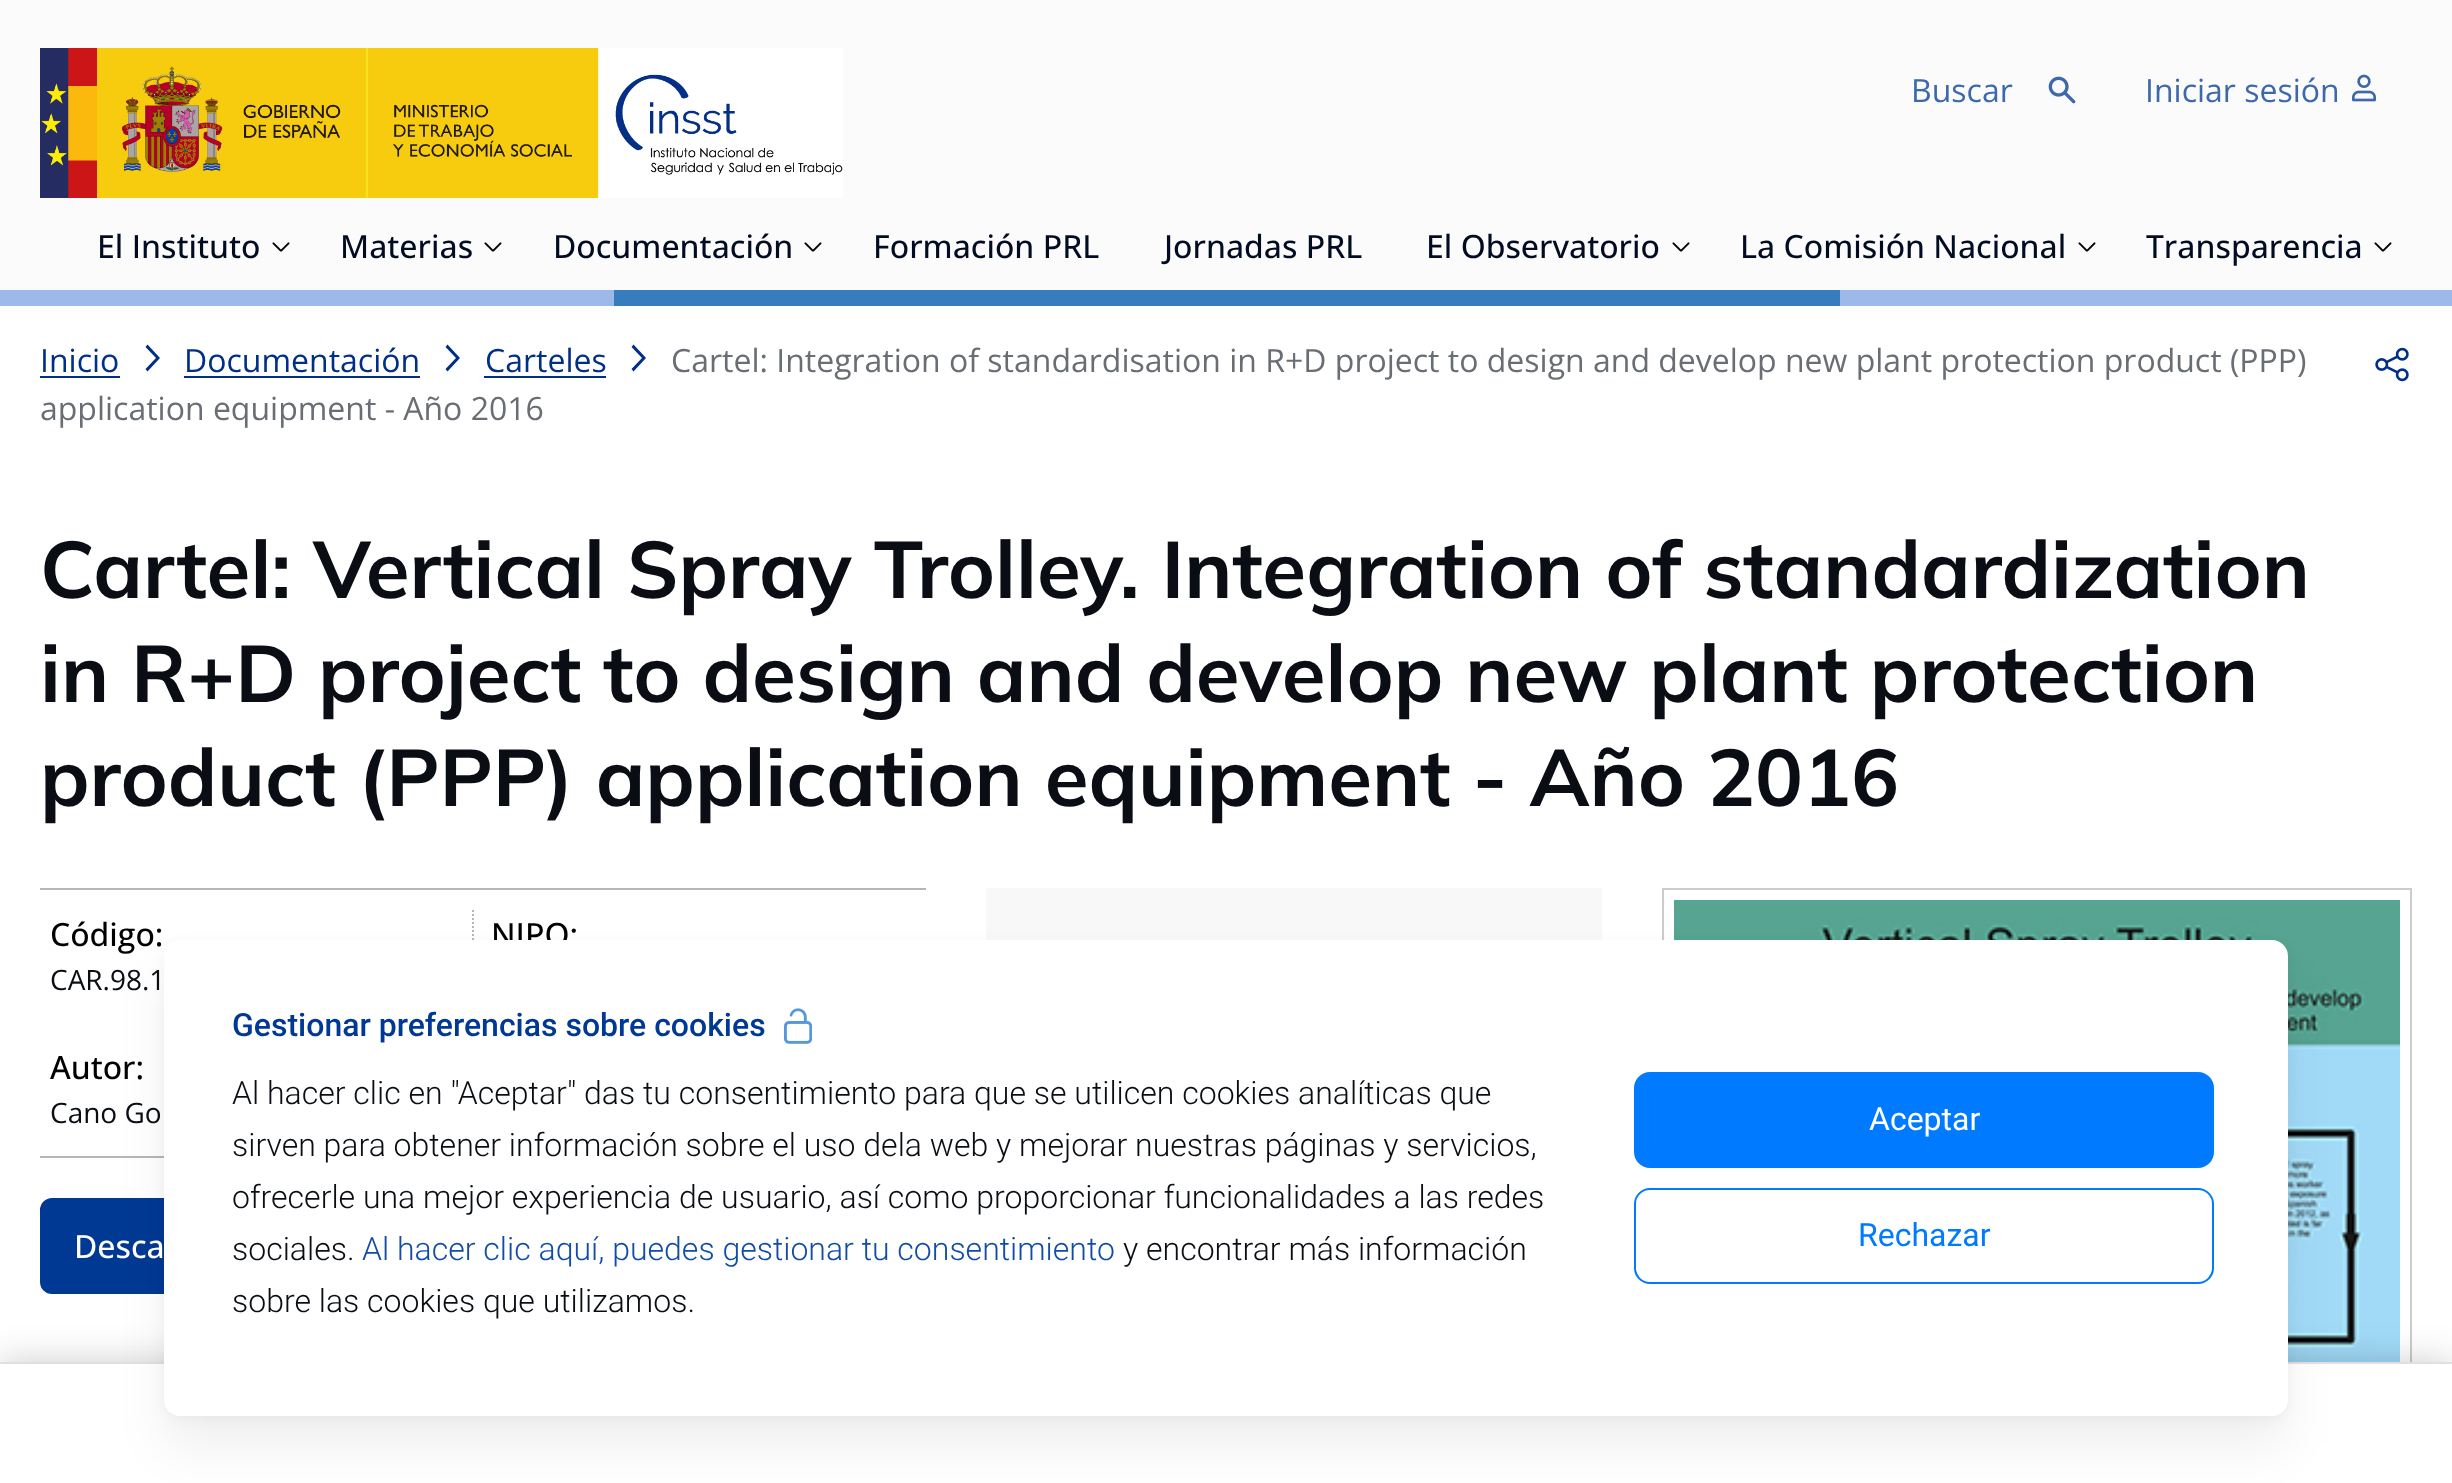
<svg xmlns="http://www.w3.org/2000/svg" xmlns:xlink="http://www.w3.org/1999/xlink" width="2452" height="1483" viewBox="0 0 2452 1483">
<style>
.cls-1{font:32px Open Sans;fill:#3d68ac}
.cls-2{font:500 32px Open Sans;fill:#010c22}
.cls-3{font:32px Open Sans;fill:#002f87}
.cls-4{font:32px Open Sans;fill:#696e75}
.cls-5{font:bold 80px Mulish;fill:#0a0e14}
.cls-6{font:500 32px Open Sans;fill:#000000}
.cls-7{font:28px Open Sans;fill:#0a0e14}
.cls-8{font:500 32px Open Sans;fill:#ffffff}
.cls-9{font:500 32px Roboto;fill:#003994}
.cls-10{font:300 32px Roboto;fill:#0a0e14}
.cls-11{font:300 32px Roboto;fill:#114da6}
.cls-12{font:32px Roboto;fill:#ffffff}
.cls-13{font:32px Roboto;fill:#007bff}
</style>
<rect width="100%" height="100%" fill="#ffffff"/>
<rect fill="#fbfbfb" x="0" y="0" width="2452" height="290"/>
<rect fill="#9cb9ea" x="1840" y="290" width="612" height="16"/>
<rect fill="#377dbe" x="614" y="290" width="1226" height="16"/>
<rect fill="#9cb9ea" x="0" y="290" width="614" height="16"/>
<image xlink:href="image0.png" x="40" y="48" width="803" height="150"/>
<image xlink:href="image1.png" x="2048" y="76" width="28" height="28"/>
<image xlink:href="image2.png" x="2352" y="74" width="24" height="28"/>
<image xlink:href="image3.png" x="272" y="242" width="18" height="10"/>
<image xlink:href="image3.png" x="484" y="242" width="18" height="10"/>
<image xlink:href="image3.png" x="804" y="242" width="18" height="10"/>
<image xlink:href="image3.png" x="1672" y="242" width="18" height="10"/>
<image xlink:href="image3.png" x="2078" y="242" width="18" height="10"/>
<image xlink:href="image3.png" x="2374" y="242" width="18" height="10"/>
<rect fill="#002f87" x="40" y="376" width="80" height="2"/>
<path fill="#002f87" d="M147.5 344.5L145.5 347L156 358L145.5 369L147.5 371.5L160 358Z"/>
<rect fill="#002f87" x="184" y="376" width="236" height="2"/>
<path fill="#002f87" d="M447.5 344.5L445.5 347L456 358L445.5 369L447.5 371.5L460 358Z"/>
<rect fill="#002f87" x="484" y="376" width="122" height="2"/>
<path fill="#002f87" d="M633.5 344.5L631.5 347L642 358L631.5 369L633.5 371.5L646 358Z"/>
<image xlink:href="image4.png" x="2375" y="347" width="34" height="35"/>
<rect fill="#f8f8f8" x="986" y="888" width="616" height="52"/>
<rect fill="#b6b6b8" x="40" y="888" width="886" height="2"/>
<rect fill="#b6b6b8" x="40" y="1156" width="124" height="2"/>
<path fill="none" stroke="#b6b6b8" stroke-width="2" stroke-dasharray="2 2" d="M473 910V1042"/>
<rect fill="#003994" stroke="#003994" stroke-width="2" x="41" y="1199" width="660" height="94" rx="11"/>
<rect fill="none" stroke="#cccccc" stroke-width="2" x="1663" y="889" width="748" height="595"/>
<image xlink:href="image5.png" x="1674" y="900" width="726" height="462"/>
<rect fill="#000000" fill-opacity="0.2" filter="blur(18px)" x="0" y="1362" width="2452" height="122"/>
<rect fill="#ffffff" x="0" y="1364" width="2452" height="119"/>
<rect fill="#e0e0e0" x="0" y="1362" width="2452" height="2"/>
<rect fill="#000000" fill-opacity="0.04" filter="blur(6px)" x="164" y="944" width="2124" height="476" rx="16"/>
<rect fill="#000000" fill-opacity="0.06" filter="blur(24px)" x="164" y="972" width="2124" height="476" rx="16"/>
<text class="cls-1" x="1911" y="102">Buscar</text>
<text class="cls-1" x="2145" y="102">Iniciar sesión</text>
<text class="cls-2" x="97" y="258">El Instituto</text>
<text class="cls-2" x="340" y="258">Materias</text>
<text class="cls-2" x="553" y="258">Documentación</text>
<text class="cls-2" x="873" y="258">Formación PRL</text>
<text class="cls-2" x="1164" y="258">Jornadas PRL</text>
<text class="cls-2" x="1426" y="258">El Observatorio</text>
<text class="cls-2" x="1740" y="258">La Comisión Nacional</text>
<text class="cls-2" x="2146" y="258">Transparencia</text>
<text class="cls-3" x="40" y="372">Inicio</text>
<text class="cls-3" x="184" y="372">Documentación</text>
<text class="cls-3" x="485" y="372">Carteles</text>
<text class="cls-4" x="671" y="372">Cartel: Integration of standardisation in R+D project to design and develop new plant protection product (PPP)</text>
<text class="cls-4" x="40" y="420">application equipment - Año 2016</text>
<text class="cls-5"><tspan x="40" y="598">Cartel: Vertical Spray Trolley. Integration of standardization</tspan><tspan x="40" y="702">in R+D project to design and develop new plant protection</tspan><tspan x="40" y="806">product (PPP) application equipment - Año 2016</tspan></text>
<text class="cls-6" x="50" y="946">Código:</text>
<text class="cls-7" x="50" y="990">CAR.98.1</text>
<text class="cls-6" x="491" y="946">NIPO:</text>
<text class="cls-6" x="50" y="1079">Autor:</text>
<text class="cls-7" x="50" y="1123">Cano Go</text>
<text class="cls-8" x="74" y="1258">Desca</text>
<rect fill="#ffffff" x="164" y="940" width="2124" height="476" rx="16"/>
<text class="cls-9" x="232" y="1036">Gestionar preferencias sobre cookies</text>
<image xlink:href="image6.png" x="784" y="1008" width="28" height="36"/>
<text class="cls-10"><tspan x="232" y="1104">Al hacer clic en "Aceptar" das tu consentimiento para que se utilicen cookies analíticas que</tspan><tspan x="232" y="1156">sirven para obtener información sobre el uso dela web y mejorar nuestras páginas y servicios,</tspan><tspan x="232" y="1208">ofrecerle una mejor experiencia de usuario, así como proporcionar funcionalidades a las redes</tspan><tspan x="232" y="1260">sociales.</tspan></text>
<text class="cls-11" x="362" y="1260">Al hacer clic aquí, puedes gestionar tu consentimiento</text>
<text class="cls-10" x="1123" y="1260">y encontrar más información</text>
<text class="cls-10" x="232" y="1312">sobre las cookies que utilizamos.</text>
<rect fill="#007bff" stroke="#007bff" stroke-width="2" x="1635" y="1073" width="578" height="94" rx="15"/>
<text class="cls-12" x="1869" y="1130">Aceptar</text>
<rect fill="none" stroke="#007bff" stroke-width="2" x="1635" y="1189" width="578" height="94" rx="15"/>
<text class="cls-13" x="1858" y="1246">Rechazar</text>
</svg>
